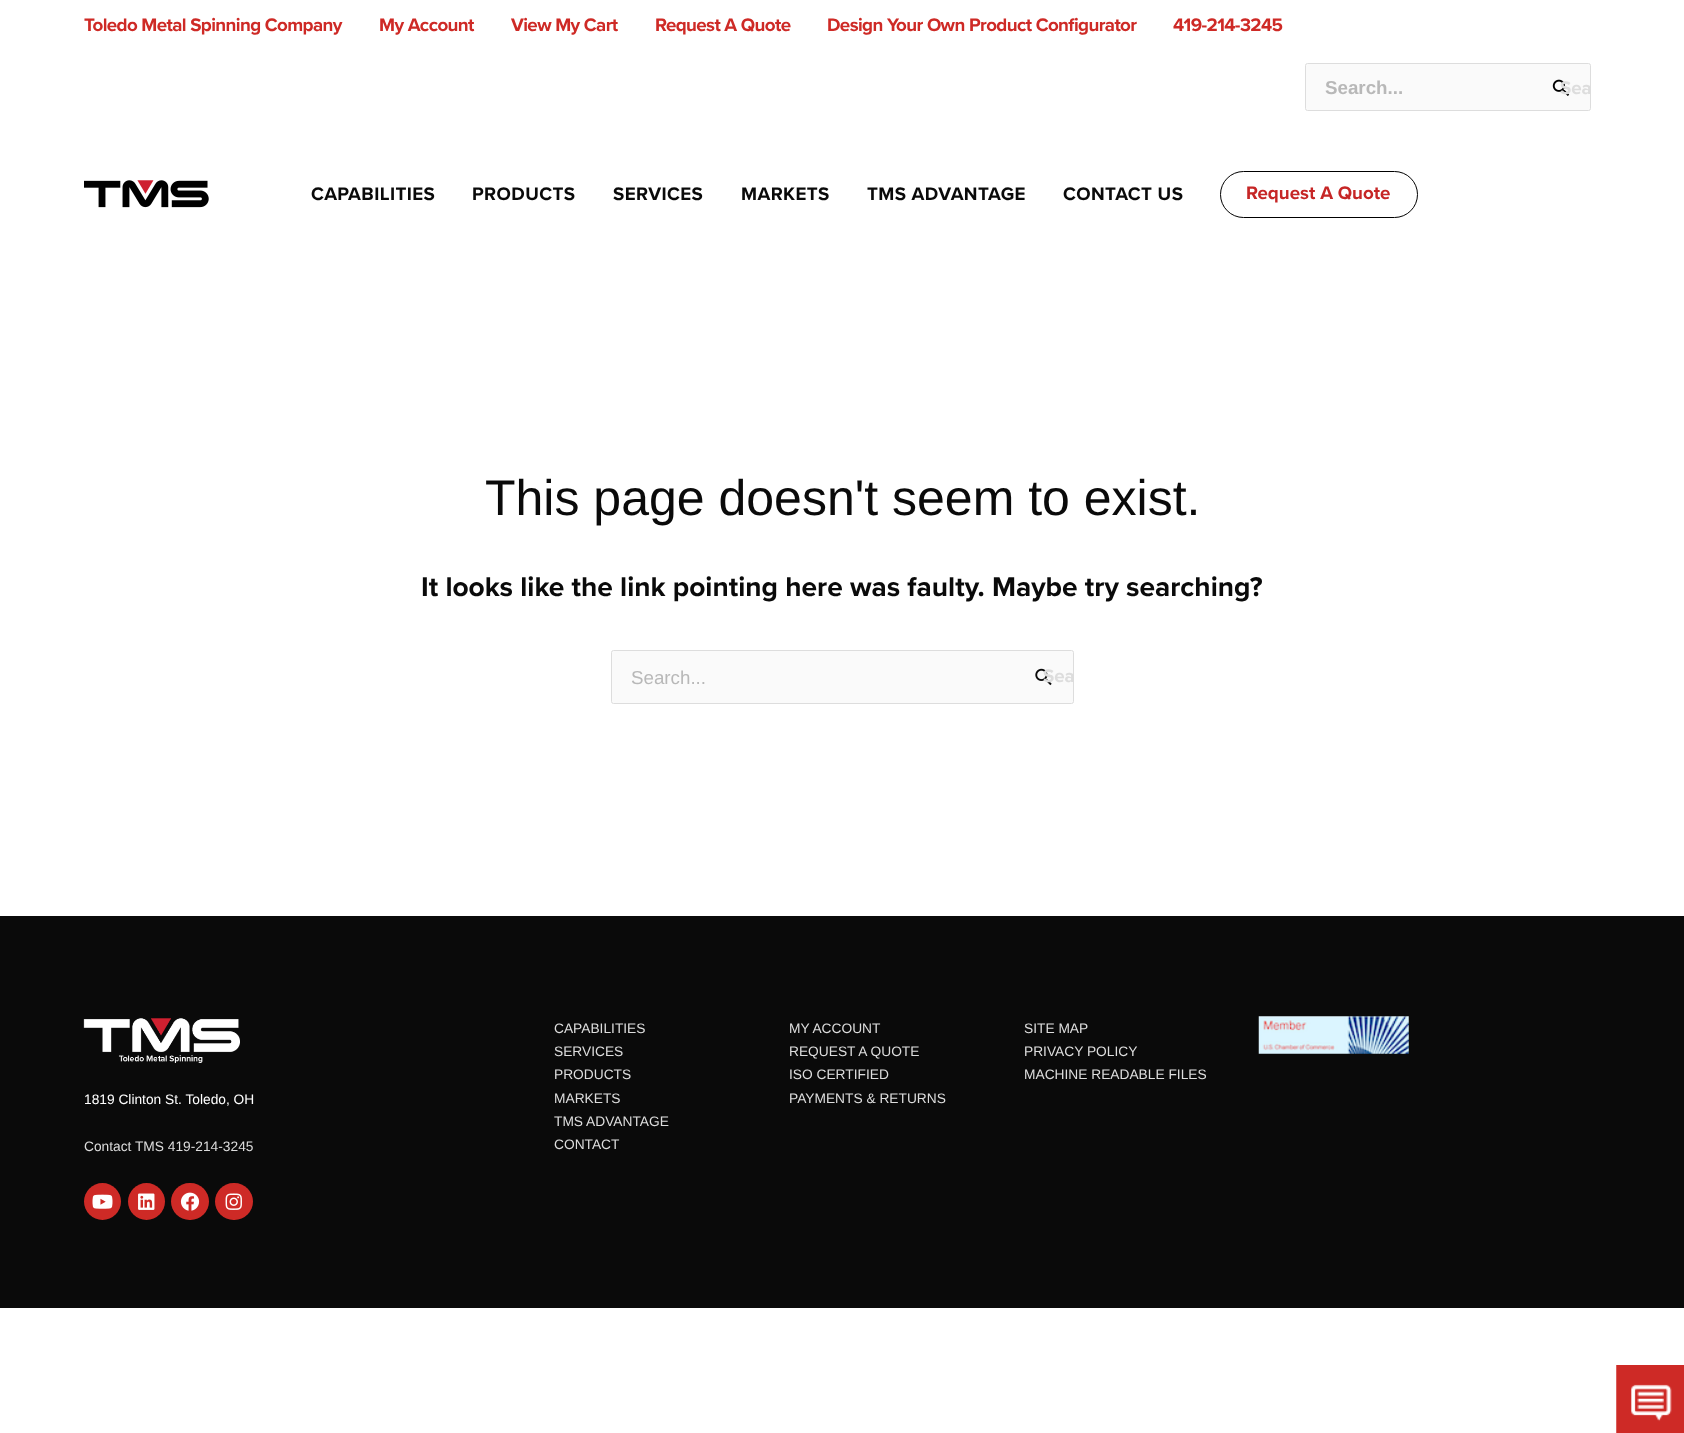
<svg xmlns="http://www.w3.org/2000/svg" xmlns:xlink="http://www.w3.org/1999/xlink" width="1684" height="1433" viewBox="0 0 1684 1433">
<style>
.cls-1{font:bold 18.75px Proxima Nova;letter-spacing:-0.6px;fill:#ce2a26}
.cls-2{font:bold 18.75px Liberation Sans;fill:#b8b8b8}
.cls-3{font:bold 18.75px Proxima Nova;fill:#dddddd}
.cls-4{font:bold 18.75px Proxima Nova;letter-spacing:0.4px;fill:#0a0a0a}
.cls-5{font:bold 18.75px Proxima Nova;fill:#c62626}
.cls-6{font:50px Liberation Sans;fill:#0a0a0a}
.cls-7{font:bold 28.1px Proxima Nova;fill:#0a0a0a}
.cls-8{font:18.75px Liberation Sans;fill:#b8b8b8}
.cls-9{font:13.75px Liberation Sans;fill:#dddddd}
.cls-10{font:13.75px Liberation Sans;fill:#ffffff}
</style>
<rect width="100%" height="100%" fill="#ffffff"/>
<rect fill="#fafafa" stroke="#dddddd" x="1305.5" y="63.5" width="285" height="47" rx="2"/>
<image xlink:href="image0.png" x="1552" y="79" width="18" height="17"/>
<image xlink:href="image1.png" x="84" y="180" width="125" height="28"/>
<rect fill="none" stroke="#000000" x="1220.5" y="171.5" width="197" height="46" rx="23"/>
<rect fill="#fafafa" stroke="#dddddd" x="611.5" y="650.5" width="462" height="53" rx="2"/>
<image xlink:href="image2.png" x="1035" y="668" width="17" height="18"/>
<rect fill="#0a0a0a" x="0" y="916" width="1684" height="392"/>
<image xlink:href="image3.png" x="1258" y="1016" width="151" height="38"/>
<image xlink:href="image4.png" x="83" y="1018" width="157" height="45"/>
<circle fill="#ce2a26" cx="102.5" cy="1201.5" r="18.5"/>
<image xlink:href="image5.png" x="92" y="1194" width="21" height="15"/>
<circle fill="#ce2a26" cx="146.5" cy="1201.5" r="18.5"/>
<image xlink:href="image6.png" x="138" y="1193" width="17" height="17"/>
<rect fill="#ce2a26" x="171" y="1183" width="38" height="37" rx="18.5"/>
<image xlink:href="image7.png" x="180" y="1192" width="20" height="19"/>
<rect fill="#ce2a26" x="215" y="1183" width="38" height="37" rx="18.5"/>
<image xlink:href="image8.png" x="225" y="1193" width="17" height="17"/>
<image xlink:href="image9.png" x="1616" y="1365" width="68" height="68"/>
<text class="cls-1" x="84" y="31">Toledo Metal Spinning Company</text>
<text class="cls-1" x="379" y="31">My Account</text>
<text class="cls-1" x="511" y="31">View My Cart</text>
<text class="cls-1" x="655" y="31">Request A Quote</text>
<text class="cls-1" x="827" y="31">Design Your Own Product Configurator</text>
<text class="cls-1" x="1173" y="31">419-214-3245</text>
<text class="cls-2" x="1325" y="94">Search...</text>
<text class="cls-3" x="1560" y="94">Sea</text>
<text class="cls-4" x="311" y="200">CAPABILITIES</text>
<text class="cls-4" x="472" y="200">PRODUCTS</text>
<text class="cls-4" x="613" y="200">SERVICES</text>
<text class="cls-4" x="741" y="200">MARKETS</text>
<text class="cls-4" x="867" y="200">TMS ADVANTAGE</text>
<text class="cls-4" x="1063" y="200">CONTACT US</text>
<text class="cls-5" x="1246" y="199">Request A Quote</text>
<text class="cls-6" x="485" y="515">This page doesn't seem to exist.</text>
<text class="cls-7" x="421" y="596">It looks like the link pointing here was faulty. Maybe try searching?</text>
<text class="cls-8" x="631" y="684">Search...</text>
<text class="cls-3" x="1043" y="682">Sea</text>
<text class="cls-9"><tspan x="554" y="1033">CAPABILITIES</tspan><tspan x="554" y="1056">SERVICES</tspan><tspan x="554" y="1079">PRODUCTS</tspan><tspan x="554" y="1103">MARKETS</tspan><tspan x="554" y="1126">TMS ADVANTAGE</tspan><tspan x="554" y="1149">CONTACT</tspan></text>
<text class="cls-9"><tspan x="789" y="1033">MY ACCOUNT</tspan><tspan x="789" y="1056">REQUEST A QUOTE</tspan><tspan x="789" y="1079">ISO CERTIFIED</tspan><tspan x="789" y="1103">PAYMENTS &amp; RETURNS</tspan></text>
<text class="cls-9"><tspan x="1024" y="1033">SITE MAP</tspan><tspan x="1024" y="1056">PRIVACY POLICY</tspan><tspan x="1024" y="1079">MACHINE READABLE FILES</tspan></text>
<text class="cls-10" x="84" y="1104">1819 Clinton St. Toledo, OH</text>
<text class="cls-9" x="84" y="1151">Contact TMS 419-214-3245</text>
</svg>
